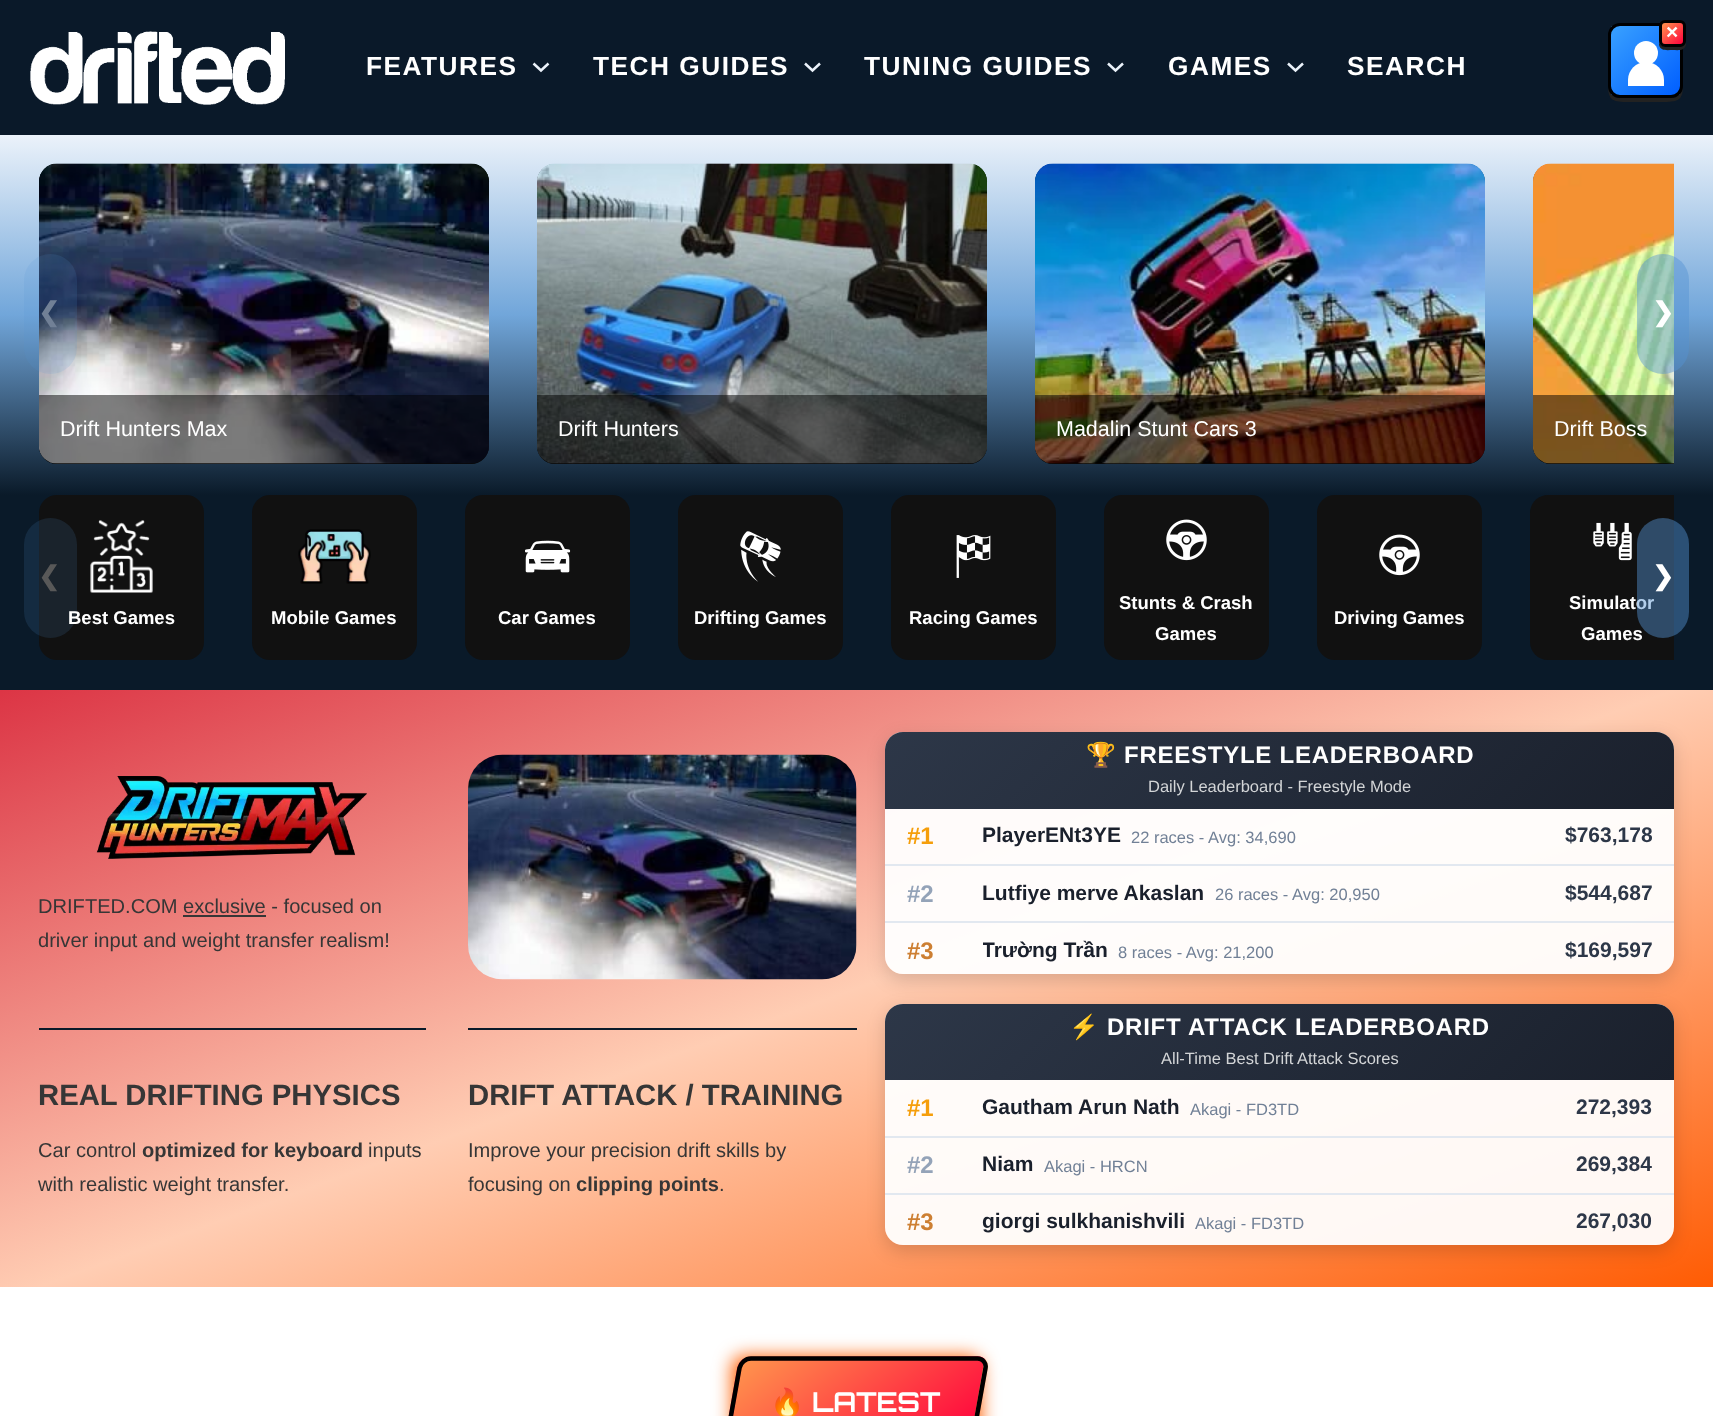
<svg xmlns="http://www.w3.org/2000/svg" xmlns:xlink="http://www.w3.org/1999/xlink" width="1713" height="1416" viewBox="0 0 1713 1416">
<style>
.cls-1{font:bold 26.25px Liberation Sans;letter-spacing:1.5px;fill:#ffffff}
.cls-2{font:bold 21px Liberation Sans;fill:#ffffff}
.cls-3{font:bold 26.25px DejaVu Sans;letter-spacing:0.75px;fill:#718096}
.cls-4{font:bold 26.25px DejaVu Sans;letter-spacing:0.75px;fill:#ffffff}
.cls-5{font:21.5px Liberation Sans;fill:#ffffff}
.cls-6{font:bold 26.25px DejaVu Sans;letter-spacing:0.75px;fill:#585858}
.cls-7{font:bold 18.5px Liberation Sans;fill:#ffffff}
.cls-8{font:20.1px Liberation Sans;fill:#363636}
.cls-9{font:bold 29.3px Liberation Sans;fill:#363636}
.cls-10{font:bold 20.1px Liberation Sans;fill:#363636}
.cls-11{font:bold 24px Noto Color Emoji;letter-spacing:0.75px;fill:#ffffff}
.cls-12{font:bold 24px Liberation Sans;letter-spacing:0.75px;fill:#ffffff}
.cls-13{font:16.5px Liberation Sans;fill:#d3d5d7}
.cls-14{font:bold 24px Liberation Sans;fill:#f59e0b}
.cls-15{font:bold 21px Liberation Sans;fill:#1a202c}
.cls-16{font:16.5px Liberation Sans;fill:#718096}
.cls-17{font:bold 21px Liberation Sans;fill:#2d3748}
.cls-18{font:bold 24px Liberation Sans;fill:#94a3b8}
.cls-19{font:bold 24px Liberation Sans;fill:#cd7f32}
.cls-20{font:bold 27.5px Noto Color Emoji;letter-spacing:-1px;fill:#ffffff}
.cls-21{font:bold 27.5px Orbitron;letter-spacing:-0.25px;fill:#ffffff}
</style>
<defs>
<clipPath id="clip1"><rect x="1608" y="23" width="75" height="75" rx="12"/></clipPath>
<linearGradient id="g1" gradientUnits="userSpaceOnUse" x1="1611" y1="26" x2="1680" y2="95"><stop offset="0" stop-color="#39a1ff"/><stop offset="1" stop-color="#005eff"/></linearGradient>
<linearGradient id="g2" gradientUnits="userSpaceOnUse" x1="1662" y1="23" x2="1683" y2="44"><stop offset="0" stop-color="#ff944d"/><stop offset="1" stop-color="#ff003c"/></linearGradient>
<linearGradient id="g3" gradientUnits="userSpaceOnUse" x1="857" y1="135" x2="857" y2="495"><stop offset="0" stop-color="#ebf2fa"/><stop offset="0.5" stop-color="#71a6da"/><stop offset="1" stop-color="#0a1a29"/></linearGradient>
<linearGradient id="g4" gradientUnits="userSpaceOnUse" x1="660" y1="450" x2="1053" y2="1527"><stop offset="0" stop-color="#dc3545"/><stop offset="0.5" stop-color="#ffcdb3"/><stop offset="1" stop-color="#ff5c04"/></linearGradient>
<clipPath id="clip2"><path d="M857 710H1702V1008H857ZM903 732H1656C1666 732 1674 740 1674 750V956C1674 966 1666 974 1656 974H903C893 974 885 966 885 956V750C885 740 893 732 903 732Z" clip-rule="evenodd"/></clipPath>
<linearGradient id="g5" gradientUnits="userSpaceOnUse" x1="1063" y1="554" x2="1496" y2="987"><stop offset="0" stop-color="#2d3748"/><stop offset="1" stop-color="#1a202c"/></linearGradient>
<clipPath id="clip3"><path d="M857 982H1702V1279H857ZM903 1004H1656C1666 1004 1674 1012 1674 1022V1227C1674 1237 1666 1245 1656 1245H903C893 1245 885 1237 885 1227V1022C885 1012 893 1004 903 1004Z" clip-rule="evenodd"/></clipPath>
<linearGradient id="g6" gradientUnits="userSpaceOnUse" x1="1063" y1="825" x2="1496" y2="1258"><stop offset="0" stop-color="#2d3748"/><stop offset="1" stop-color="#1a202c"/></linearGradient>
<clipPath id="clip4"><rect x="983" y="933" width="126" height="36"/></clipPath>
</defs>
<rect width="100%" height="100%" fill="#ffffff"/>
<rect fill="#0a1929" x="0" y="0" width="1713" height="135"/>
<image xlink:href="image0.png" x="30" y="31" width="255" height="74"/>
<path fill="none" stroke="#ebf2fa" stroke-width="2.5" d="M533.5 63.5L541 70.5L548.5 63.5"/>
<path fill="none" stroke="#ebf2fa" stroke-width="2.5" d="M805 63.5L812.5 70.5L820 63.5"/>
<path fill="none" stroke="#ebf2fa" stroke-width="2.5" d="M1108 63.5L1115.5 70.5L1123 63.5"/>
<path fill="none" stroke="#ebf2fa" stroke-width="2.5" d="M1288 63.5L1295.5 70.5L1303 63.5"/>
<path fill="#222222" d="M1608 86C1608 101 1614 102 1628 102H1662C1677 102 1683 101 1683 86C1683 92 1678 98 1671 98H1620C1613 98 1608 92 1608 86Z"/>
<g clip-path="url(#clip1)">
<rect fill="url(#g1)" x="1611" y="26" width="69" height="69"/>
</g>
<rect fill="none" stroke="#000000" stroke-width="3" x="1609.5" y="24.5" width="72" height="72" rx="10.5"/>
<path fill="#222222" d="M1659 40.5V45C1660.5 51.5 1668 50 1672.5 50C1677 50 1684.5 51.5 1686 45V40.5C1686 48 1677.5 46.5 1672.5 46.5C1667.5 46.5 1659 48 1659 40.5Z"/>
<rect fill="url(#g2)" x="1662" y="23" width="21" height="21"/>
<rect fill="none" stroke="#000000" stroke-width="3" x="1660.5" y="21.5" width="24" height="24" rx="4.5"/>
<circle fill="#ffffff" cx="1646" cy="53" r="12"/>
<path fill="#ffffff" d="M1646 62C1656 62 1664 70 1664 80V86H1628V80C1628 70 1636 62 1646 62Z"/>
<rect fill="url(#g3)" x="0" y="135" width="1713" height="360"/>
<rect fill="#111111" x="39" y="164" width="450" height="300" rx="18"/>
<image xlink:href="image1.png" x="39" y="163" width="451" height="301"/>
<image xlink:href="image2.png" x="39" y="163" width="450" height="301"/>
<rect fill="#5493d3" fill-opacity="0.14" x="24" y="254" width="53" height="120" rx="26.5"/>
<path fill="#111111" d="M1551 164H1674V464H1551C1541 464 1533 456 1533 446V182C1533 172 1541 164 1551 164Z"/>
<image xlink:href="image7.png" x="1533" y="163" width="141" height="301"/>
<image xlink:href="image8.png" x="1533" y="163" width="141" height="301"/>
<rect fill="#5493d3" fill-opacity="0.45" x="1637" y="254" width="52" height="120" rx="26"/>
<path fill="#000000" fill-opacity="0.5" d="M39 395H489V446C489 456 481 464 471 464H57C47 464 39 456 39 446Z"/>
<rect fill="#111111" x="537" y="164" width="450" height="300" rx="18"/>
<image xlink:href="image3.png" x="537" y="163" width="451" height="301"/>
<image xlink:href="image4.png" x="537" y="163" width="450" height="301"/>
<path fill="#000000" fill-opacity="0.5" d="M537 395H987V446C987 456 979 464 969 464H555C545 464 537 456 537 446Z"/>
<rect fill="#111111" x="1035" y="164" width="450" height="300" rx="18"/>
<image xlink:href="image5.png" x="1035" y="163" width="450" height="301"/>
<image xlink:href="image6.png" x="1035" y="163" width="450" height="301"/>
<path fill="#000000" fill-opacity="0.5" d="M1035 395H1485V446C1485 456 1477 464 1467 464H1053C1043 464 1035 456 1035 446Z"/>
<path fill="#000000" fill-opacity="0.5" d="M1533 395H1674V464H1551C1541 464 1533 456 1533 446Z"/>
<rect fill="#0a1a29" x="0" y="495" width="1713" height="195"/>
<rect fill="#111111" x="39" y="495" width="165" height="165" rx="18"/>
<rect fill="#5493d3" fill-opacity="0.14" x="24" y="518" width="53" height="120" rx="26.5"/>
<image xlink:href="image9.png" x="90" y="520" width="63" height="73"/>
<rect fill="#111111" x="252" y="495" width="165" height="165" rx="18"/>
<image xlink:href="image10.png" x="298" y="529" width="73" height="55"/>
<rect fill="#111111" x="465" y="495" width="165" height="165" rx="18"/>
<image xlink:href="image11.png" x="525" y="540" width="46" height="33"/>
<rect fill="#111111" x="678" y="495" width="165" height="165" rx="18"/>
<image xlink:href="image12.png" x="740" y="531" width="41" height="51"/>
<rect fill="#111111" x="891" y="495" width="165" height="165" rx="18"/>
<image xlink:href="image13.png" x="956" y="535" width="35" height="43"/>
<rect fill="#111111" x="1104" y="495" width="165" height="165" rx="18"/>
<image xlink:href="image14.png" x="1166" y="519" width="41" height="42"/>
<rect fill="#111111" x="1317" y="495" width="165" height="165" rx="18"/>
<image xlink:href="image14.png" x="1379" y="534" width="41" height="42"/>
<path fill="#111111" d="M1548 495H1674V660H1548C1538 660 1530 652 1530 642V513C1530 503 1538 495 1548 495Z"/>
<image xlink:href="image15.png" x="1593" y="522" width="39" height="39"/>
<rect fill="url(#g4)" x="0" y="690" width="1713" height="597"/>
<image xlink:href="image16.png" x="96" y="776" width="271" height="83"/>
<rect fill="#363636" x="183" y="915" width="83" height="2"/>
<image xlink:href="image17.png" x="468" y="754" width="389" height="226"/>
<rect fill="#0a1a29" x="39" y="1028" width="387" height="2"/>
<rect fill="#0a1a29" x="468" y="1028" width="389" height="2"/>
<g clip-path="url(#clip2)">
<rect fill="#000000" fill-opacity="0.15" filter="blur(9px)" x="885" y="738" width="789" height="242" rx="18"/>
</g>
<rect fill="#ffffff" fill-opacity="0.95" x="885" y="732" width="789" height="242" rx="18"/>
<path fill="url(#g5)" d="M903 732H1656C1666 732 1674 740 1674 750V809H885V750C885 740 893 732 903 732Z"/>
<rect fill="#e2e8f0" x="885" y="864" width="789" height="2"/>
<rect fill="#e2e8f0" x="885" y="921" width="789" height="2"/>
<g clip-path="url(#clip3)">
<rect fill="#000000" fill-opacity="0.15" filter="blur(9px)" x="885" y="1010" width="789" height="241" rx="18"/>
</g>
<rect fill="#ffffff" fill-opacity="0.95" x="885" y="1004" width="789" height="241" rx="18"/>
<path fill="url(#g6)" d="M903 1004H1656C1666 1004 1674 1012 1674 1022V1080H885V1022C885 1012 893 1004 903 1004Z"/>
<rect fill="#e2e8f0" x="885" y="1136" width="789" height="2"/>
<rect fill="#e2e8f0" x="885" y="1193" width="789" height="2"/>
<rect fill="#ff5e00" filter="blur(9px)" x="732" y="1356" width="249" height="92" rx="12"/>
<image xlink:href="image18.png" x="728" y="1356" width="260" height="60"/>
<path fill="none" stroke="#000000" stroke-width="4.5" d="M751 1358.5H977.5C982.5 1358.5 986.5 1363 985.5 1368L973.5 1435C972.5 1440.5 967.5 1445 962 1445H735.5C730 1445 726.5 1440.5 727.5 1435L739.5 1368C740.5 1363 745.5 1358.5 751 1358.5Z"/>
<text class="cls-1" x="366" y="75">FEATURES</text>
<text class="cls-1" x="593" y="75">TECH GUIDES</text>
<text class="cls-1" x="864" y="75">TUNING GUIDES</text>
<text class="cls-1" x="1168" y="75">GAMES</text>
<text class="cls-1" x="1347" y="75">SEARCH</text>
<text class="cls-2" x="1666" y="39">×</text>
<text class="cls-3" x="38" y="321">❮</text>
<text class="cls-4" x="1652" y="321">❯</text>
<text class="cls-5" x="60" y="436">Drift Hunters Max</text>
<text class="cls-5" x="558" y="436">Drift Hunters</text>
<text class="cls-5" x="1056" y="436">Madalin Stunt Cars 3</text>
<text class="cls-5" x="1554" y="436">Drift Boss</text>
<text class="cls-6" x="38" y="585">❮</text>
<text class="cls-7" x="68" y="624">Best Games</text>
<text class="cls-7" x="271" y="624">Mobile Games</text>
<text class="cls-7" x="498" y="624">Car Games</text>
<text class="cls-7" x="694" y="624">Drifting Games</text>
<text class="cls-7" x="909" y="624">Racing Games</text>
<text class="cls-7" x="1119" y="609">Stunts &amp; Crash</text>
<text class="cls-7" x="1155" y="640">Games</text>
<text class="cls-7" x="1334" y="624">Driving Games</text>
<text class="cls-7" x="1569" y="609">Simulator</text>
<text class="cls-7" x="1581" y="640">Games</text>
<rect fill="#5493d3" fill-opacity="0.45" x="1637" y="518" width="52" height="120" rx="26"/>
<text class="cls-4" x="1652" y="585">❯</text>
<text class="cls-8"><tspan x="38" y="913">DRIFTED.COM exclusive - focused on</tspan><tspan x="38" y="947">driver input and weight transfer realism!</tspan></text>
<text class="cls-9" x="38" y="1105">REAL DRIFTING PHYSICS</text>
<text class="cls-8" x="38" y="1157">Car control</text>
<text class="cls-10" x="142" y="1157">optimized for keyboard</text>
<text class="cls-8" x="368" y="1157">inputs</text>
<text class="cls-8" x="38" y="1191">with realistic weight transfer.</text>
<text class="cls-9" x="468" y="1105">DRIFT ATTACK / TRAINING</text>
<text class="cls-8"><tspan x="468" y="1157">Improve your precision drift skills by</tspan><tspan x="468" y="1191">focusing on</tspan></text>
<text class="cls-10" x="576" y="1191">clipping points</text>
<text class="cls-8" x="719" y="1191">.</text>
<text class="cls-11" x="1086" y="763">🏆</text>
<text class="cls-12" x="1124" y="763">FREESTYLE LEADERBOARD</text>
<text class="cls-13" x="1148" y="792">Daily Leaderboard - Freestyle Mode</text>
<text class="cls-14" x="907" y="844">#1</text>
<text class="cls-15" x="982" y="842">PlayerENt3YE</text>
<text class="cls-16" x="1131" y="843">22 races - Avg: 34,690</text>
<text class="cls-17" x="1565" y="842">$763,178</text>
<text class="cls-18" x="907" y="902">#2</text>
<text class="cls-15" x="982" y="900">Lutfiye merve Akaslan</text>
<text class="cls-16" x="1215" y="900">26 races - Avg: 20,950</text>
<text class="cls-17" x="1565" y="900">$544,687</text>
<text class="cls-19" x="907" y="959">#3</text>
<g clip-path="url(#clip4)">
<text class="cls-15" x="982" y="957">Trường Trần</text>
</g>
<text class="cls-16" x="1118" y="958">8 races - Avg: 21,200</text>
<text class="cls-17" x="1565" y="957">$169,597</text>
<text class="cls-11" x="1069" y="1035">⚡</text>
<text class="cls-12" x="1107" y="1035">DRIFT ATTACK LEADERBOARD</text>
<text class="cls-13" x="1161" y="1064">All-Time Best Drift Attack Scores</text>
<text class="cls-14" x="907" y="1116">#1</text>
<text class="cls-15" x="982" y="1114">Gautham Arun Nath</text>
<text class="cls-16" x="1190" y="1115">Akagi - FD3TD</text>
<text class="cls-17" x="1576" y="1114">272,393</text>
<text class="cls-18" x="907" y="1173">#2</text>
<text class="cls-15" x="982" y="1171">Niam</text>
<text class="cls-16" x="1044" y="1172">Akagi - HRCN</text>
<text class="cls-17" x="1576" y="1171">269,384</text>
<text class="cls-19" x="907" y="1230">#3</text>
<text class="cls-15" x="982" y="1228">giorgi sulkhanishvili</text>
<text class="cls-16" x="1195" y="1229">Akagi - FD3TD</text>
<text class="cls-17" x="1576" y="1228">267,030</text>
<text class="cls-20" x="770" y="1412">🔥</text>
<text class="cls-21" x="812" y="1412">LATEST</text>
</svg>
